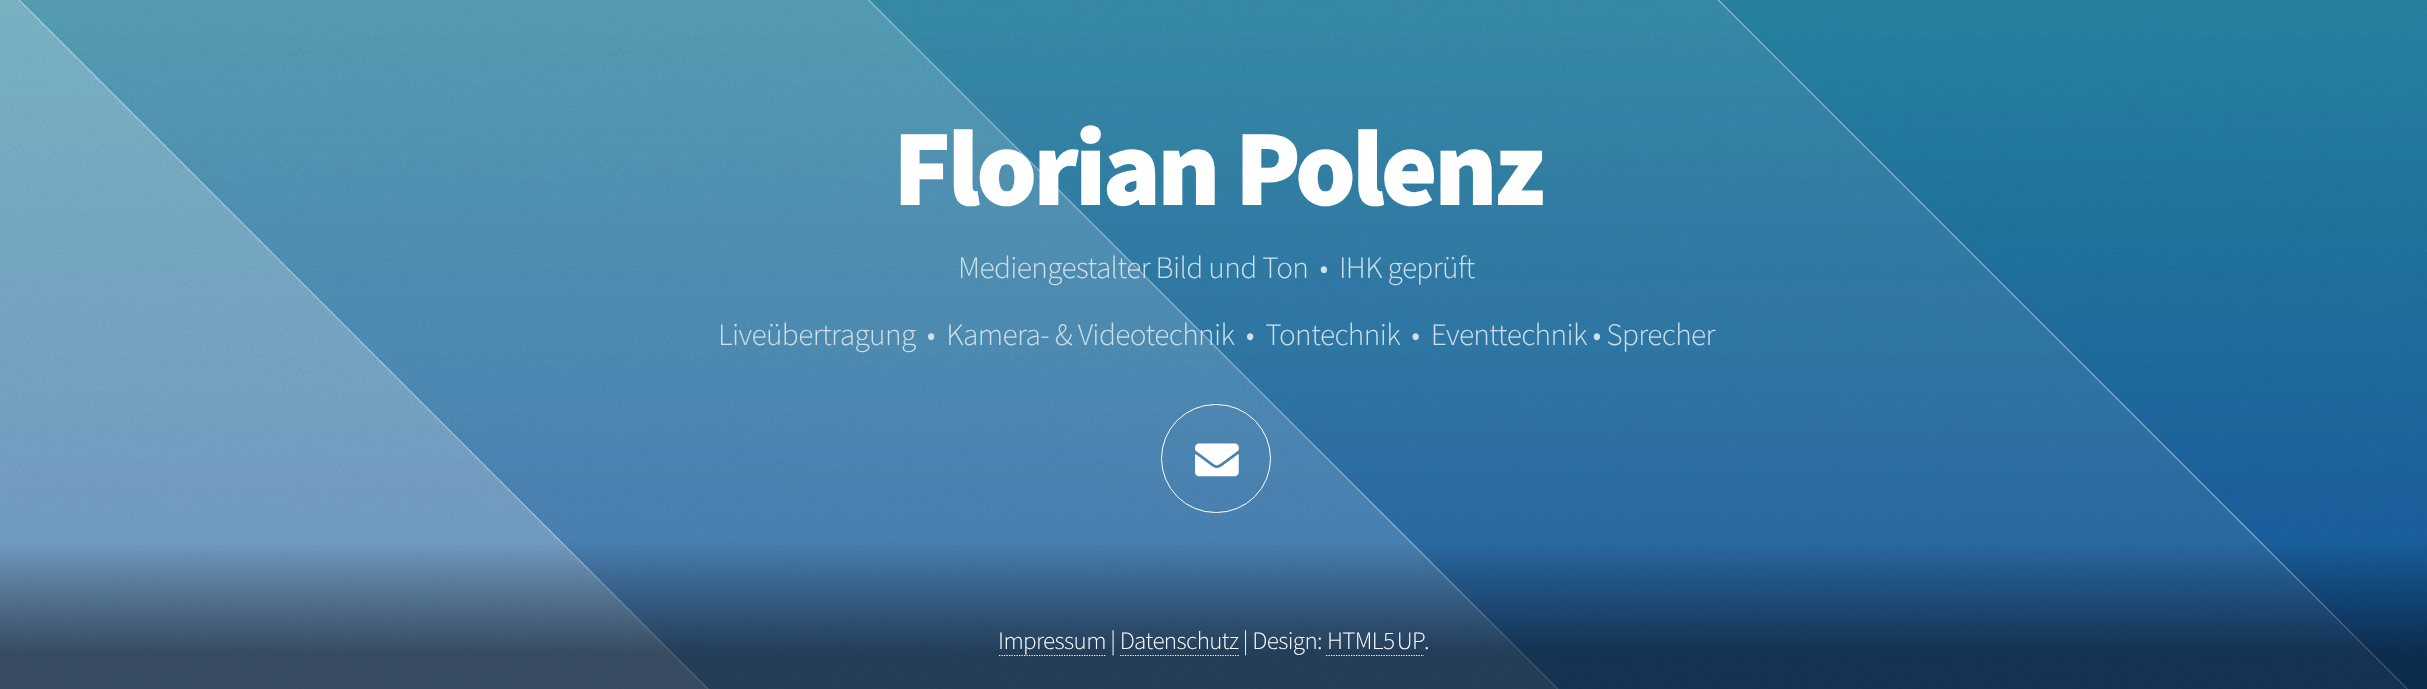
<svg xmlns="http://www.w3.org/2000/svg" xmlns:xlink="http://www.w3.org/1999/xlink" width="2427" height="689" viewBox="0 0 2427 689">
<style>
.cls-1{font:900 108.75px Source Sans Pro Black;letter-spacing:-3.75px;fill:#ffffff}
.cls-2{font:300 31.25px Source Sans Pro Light;letter-spacing:-0.62px;fill:#cee0e9}
.cls-3{font:300 25px Source Sans Pro Light;letter-spacing:-0.62px;fill:#ffffff}
</style>
<defs>
<linearGradient id="g1" gradientUnits="userSpaceOnUse" x1="1214" y1="540" x2="1214" y2="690"><stop offset="0" stop-color="#000000" stop-opacity="0"/><stop offset="0.75" stop-color="#000000" stop-opacity="0.5"/></linearGradient>
</defs>
<rect width="100%" height="100%" fill="#ffffff"/>
<image xlink:href="image0.png" x="0" y="0" width="2427" height="689"/>
<image xlink:href="image1.png" x="0" y="0" width="2427" height="689"/>
<rect fill="none" stroke="#ffffff" x="1161.5" y="404.5" width="109" height="108" rx="54"/>
<image xlink:href="image2.png" x="1195" y="443" width="44" height="34"/>
<rect fill="url(#g1)" x="0" y="545" width="2427" height="144"/>
<path fill="none" stroke="#ffffff" stroke-width="1.2" stroke-dasharray="1.25 1.25" d="M999 655.5H1106"/>
<path fill="none" stroke="#ffffff" stroke-width="1.2" stroke-dasharray="1.25 1.25" d="M1120 655.5H1239"/>
<path fill="none" stroke="#ffffff" stroke-width="1.2" stroke-dasharray="1.25 1.25" d="M1326 655.5H1424"/>
<text class="cls-1" x="893" y="205">Florian Polenz</text>
<text class="cls-2" xml:space="preserve" x="958" y="278">Mediengestalter Bild und Ton  •  IHK geprüft</text>
<text class="cls-2" xml:space="preserve" x="718" y="345">Liveübertragung  •  Kamera- &amp; Videotechnik  •  Tontechnik  •  Eventtechnik • Sprecher</text>
<text class="cls-3" x="998" y="649">Impressum | Datenschutz | Design:</text>
<text class="cls-3" x="1327" y="649" word-spacing="-2">HTML5 UP</text>
<text class="cls-3" x="1424" y="649">.</text>
</svg>
